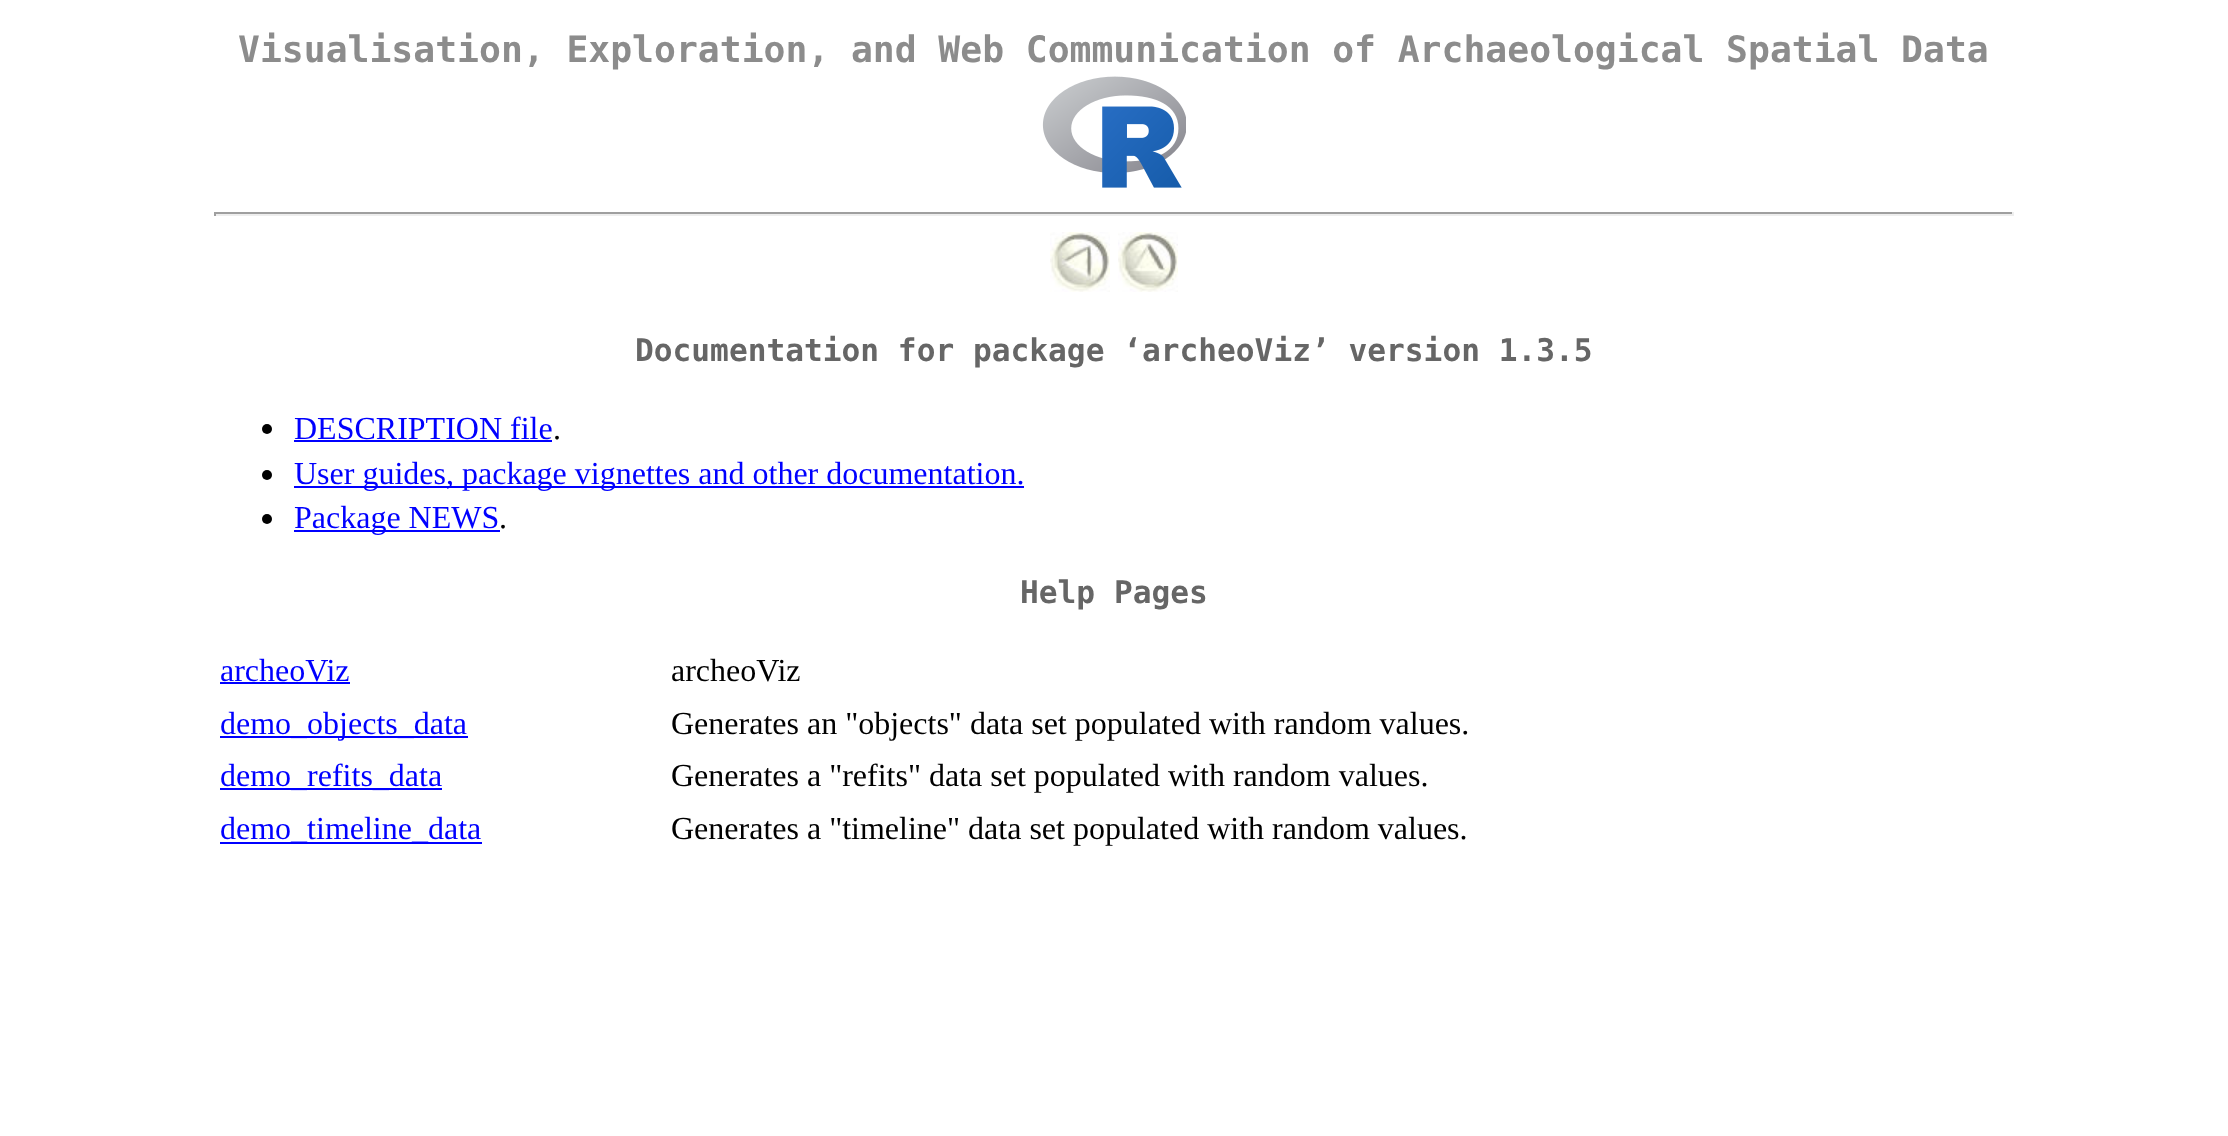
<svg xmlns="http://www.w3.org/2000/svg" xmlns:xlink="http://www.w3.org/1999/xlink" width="2228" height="1136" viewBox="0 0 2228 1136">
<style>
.cls-1{font:bold 36.4px DejaVu Sans Mono;fill:#8c8c8c}
.cls-2{font:bold 31.2px DejaVu Sans Mono;fill:#666666}
.cls-3{font:32px Liberation Serif;fill:#0000ff}
.cls-4{font:32px Liberation Serif;fill:#000000}
</style>
<rect width="100%" height="100%" fill="#ffffff"/>
<image xlink:href="image0.png" x="1042" y="76" width="144" height="112"/>
<rect fill="#9f9f9f" x="214" y="212" width="1800" height="2"/>
<rect fill="#eeeeee" x="2012" y="212" width="2" height="4"/>
<rect fill="#eeeeee" x="214" y="214" width="1800" height="2"/>
<rect fill="#9f9f9f" x="214" y="212" width="2" height="4"/>
<image xlink:href="image1.png" x="1050" y="232" width="60" height="60"/>
<image xlink:href="image2.png" x="1118" y="232" width="60" height="60"/>
<circle fill="#000000" cx="267" cy="429" r="5"/>
<rect fill="#0000ff" x="294" y="440" width="258" height="2"/>
<circle fill="#000000" cx="267" cy="475" r="5"/>
<rect fill="#0000ff" x="294" y="486" width="730" height="2"/>
<circle fill="#000000" cx="267" cy="519" r="5"/>
<rect fill="#0000ff" x="294" y="530" width="206" height="2"/>
<rect fill="#0000ff" x="220" y="682" width="130" height="2"/>
<rect fill="#0000ff" x="220" y="736" width="248" height="2"/>
<rect fill="#0000ff" x="220" y="788" width="222" height="2"/>
<rect fill="#0000ff" x="220" y="842" width="262" height="2"/>
<text class="cls-1" x="238" y="62" word-spacing="-0.25">Visualisation, Exploration, and Web Communication of Archaeological Spatial Data</text>
<text class="cls-2" x="635" y="361">Documentation for package ‘archeoViz’ version 1.3.5</text>
<text class="cls-3" x="294" y="439">DESCRIPTION file</text>
<text class="cls-4" x="553" y="439">.</text>
<text class="cls-3"><tspan x="294" y="484">User guides, package vignettes and other documentation.</tspan><tspan x="294" y="528">Package NEWS</tspan></text>
<text class="cls-4" x="499" y="528">.</text>
<text class="cls-2" x="1020" y="603">Help Pages</text>
<text class="cls-3" x="220" y="681">archeoViz</text>
<text class="cls-4" x="671" y="681">archeoViz</text>
<text class="cls-3" x="220" y="734">demo_objects_data</text>
<text class="cls-4" x="671" y="734">Generates an "objects" data set populated with random values.</text>
<text class="cls-3" x="220" y="786">demo_refits_data</text>
<text class="cls-4" x="671" y="786">Generates a "refits" data set populated with random values.</text>
<text class="cls-3" x="220" y="839">demo_timeline_data</text>
<text class="cls-4" x="671" y="839">Generates a "timeline" data set populated with random values.</text>
</svg>
